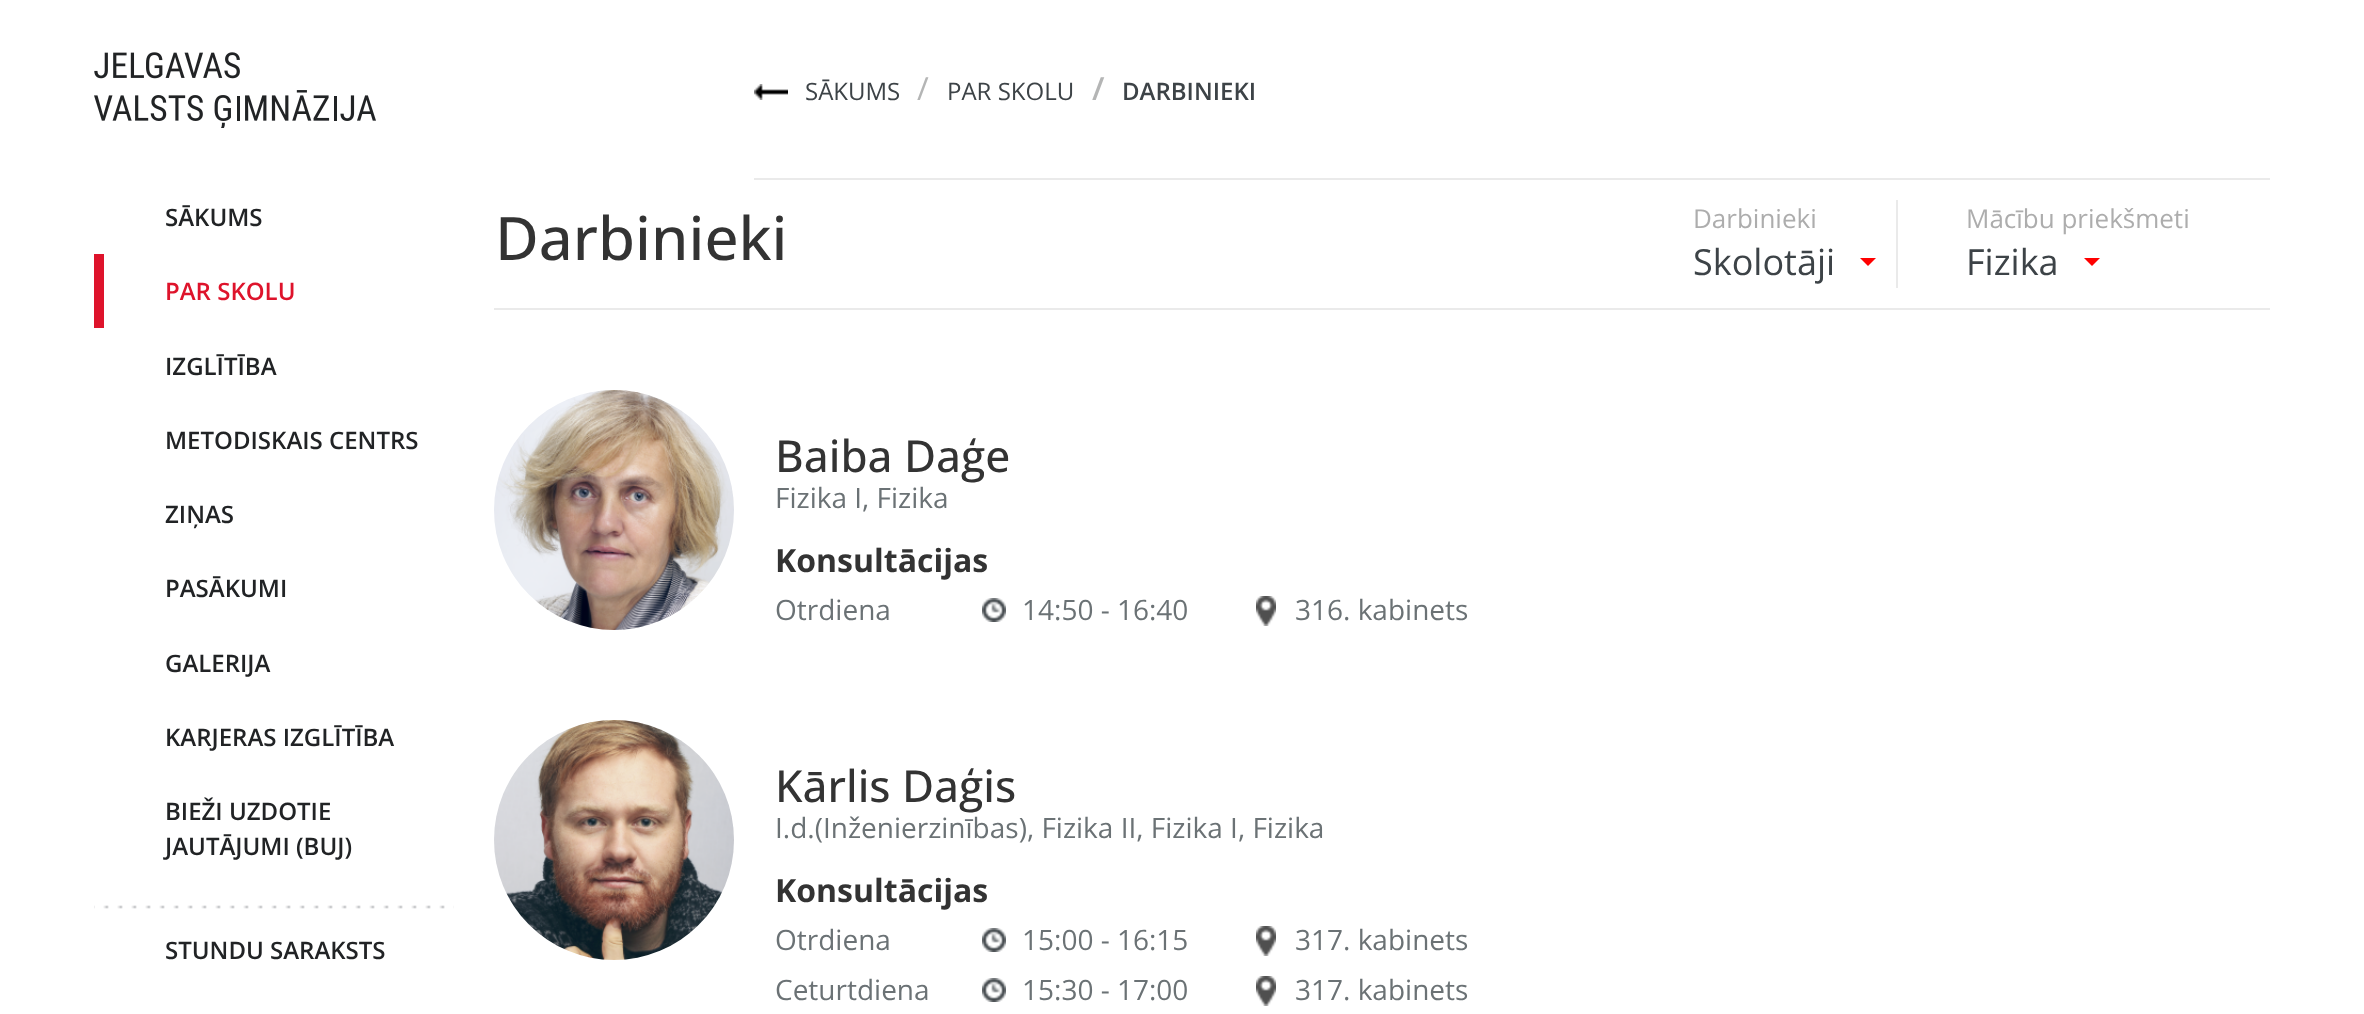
<svg xmlns="http://www.w3.org/2000/svg" xmlns:xlink="http://www.w3.org/1999/xlink" width="2364" height="1014" viewBox="0 0 2364 1014">
<style>
.cls-1{font:24px Open Sans;fill:#3d4347}
.cls-2{font:32px Open Sans;fill:#b4b5b5}
.cls-3{font:600 32px Open Sans;fill:#b4b5b5}
.cls-4{font:600 24px Open Sans;fill:#3d4347}
.cls-5{font:600 24px Open Sans;fill:#212325}
.cls-6{font:600 24px Open Sans;fill:#de132b}
.cls-7{font:500 60px Open Sans;fill:#333333}
.cls-8{font:26px Open Sans;fill:#adadad}
.cls-9{font:36px Open Sans;fill:#3d4347}
.cls-10{font:500 44px Open Sans;fill:#333333}
.cls-11{font:28px Open Sans;fill:#6b7275}
.cls-12{font:bold 32px Open Sans;fill:#333333}
</style>
<rect width="100%" height="100%" fill="#ffffff"/>
<image xlink:href="image0.png" x="94" y="52" width="282" height="76"/>
<rect fill="#eaeaea" x="754" y="178" width="1516" height="2"/>
<image xlink:href="image1.png" x="754" y="84" width="34" height="16"/>
<rect fill="#de132b" x="94" y="254" width="10" height="74"/>
<image xlink:href="image2.png" x="94" y="905" width="360" height="4"/>
<rect fill="#eaeaea" x="494" y="308" width="1776" height="2"/>
<rect fill="#eaeaea" x="1896" y="200" width="2" height="88"/>
<path fill="#ff0000" d="M1860 258H1876L1868 266Z"/>
<path fill="#ff0000" d="M2084 258H2100L2092 266Z"/>
<image xlink:href="image3.png" x="494" y="390" width="240" height="240"/>
<image xlink:href="image4.png" x="982" y="598" width="24" height="24"/>
<image xlink:href="image5.png" x="1256" y="596" width="20" height="30"/>
<image xlink:href="image6.png" x="494" y="720" width="240" height="240"/>
<image xlink:href="image4.png" x="982" y="928" width="24" height="24"/>
<image xlink:href="image5.png" x="1256" y="926" width="20" height="30"/>
<image xlink:href="image4.png" x="982" y="978" width="24" height="24"/>
<image xlink:href="image5.png" x="1256" y="976" width="20" height="30"/>
<text class="cls-1" x="805" y="100">SĀKUMS</text>
<text class="cls-2" x="917" y="100">/</text>
<text class="cls-1" x="947" y="100">PAR SKOLU</text>
<text class="cls-3" x="1092" y="100">/</text>
<text class="cls-4" x="1122" y="100">DARBINIEKI</text>
<text class="cls-5" x="165" y="226">SĀKUMS</text>
<text class="cls-6" x="165" y="300">PAR SKOLU</text>
<text class="cls-5" x="165" y="375">IZGLĪTĪBA</text>
<text class="cls-5" x="165" y="449">METODISKAIS CENTRS</text>
<text class="cls-5" x="165" y="523">ZIŅAS</text>
<text class="cls-5" x="165" y="597">PASĀKUMI</text>
<text class="cls-5" x="165" y="672">GALERIJA</text>
<text class="cls-5" x="165" y="746">KARJERAS IZGLĪTĪBA</text>
<text class="cls-5"><tspan x="165" y="820">BIEŽI UZDOTIE</tspan><tspan x="165" y="855">JAUTĀJUMI (BUJ)</tspan></text>
<text class="cls-5" x="165" y="959">STUNDU SARAKSTS</text>
<text class="cls-7" x="495" y="260">Darbinieki</text>
<text class="cls-8" x="1693" y="228">Darbinieki</text>
<text class="cls-9" x="1693" y="275">Skolotāji</text>
<text class="cls-8" x="1966" y="228">Mācību priekšmeti</text>
<text class="cls-9" x="1966" y="275">Fizika</text>
<text class="cls-10" x="775" y="472">Baiba Daģe</text>
<text class="cls-11" x="775" y="508">Fizika I, Fizika</text>
<text class="cls-12" x="775" y="572">Konsultācijas</text>
<text class="cls-11" x="775" y="620">Otrdiena</text>
<text class="cls-11" x="1022" y="620">14:50 - 16:40</text>
<text class="cls-11" x="1295" y="620">316. kabinets</text>
<text class="cls-10" x="775" y="802">Kārlis Daģis</text>
<text class="cls-11" x="775" y="838">I.d.(Inženierzinības), Fizika II, Fizika I, Fizika</text>
<text class="cls-12" x="775" y="902">Konsultācijas</text>
<text class="cls-11" x="775" y="950">Otrdiena</text>
<text class="cls-11" x="1022" y="950">15:00 - 16:15</text>
<text class="cls-11" x="1295" y="950">317. kabinets</text>
<text class="cls-11" x="775" y="1000">Ceturtdiena</text>
<text class="cls-11" x="1022" y="1000">15:30 - 17:00</text>
<text class="cls-11" x="1295" y="1000">317. kabinets</text>
</svg>
